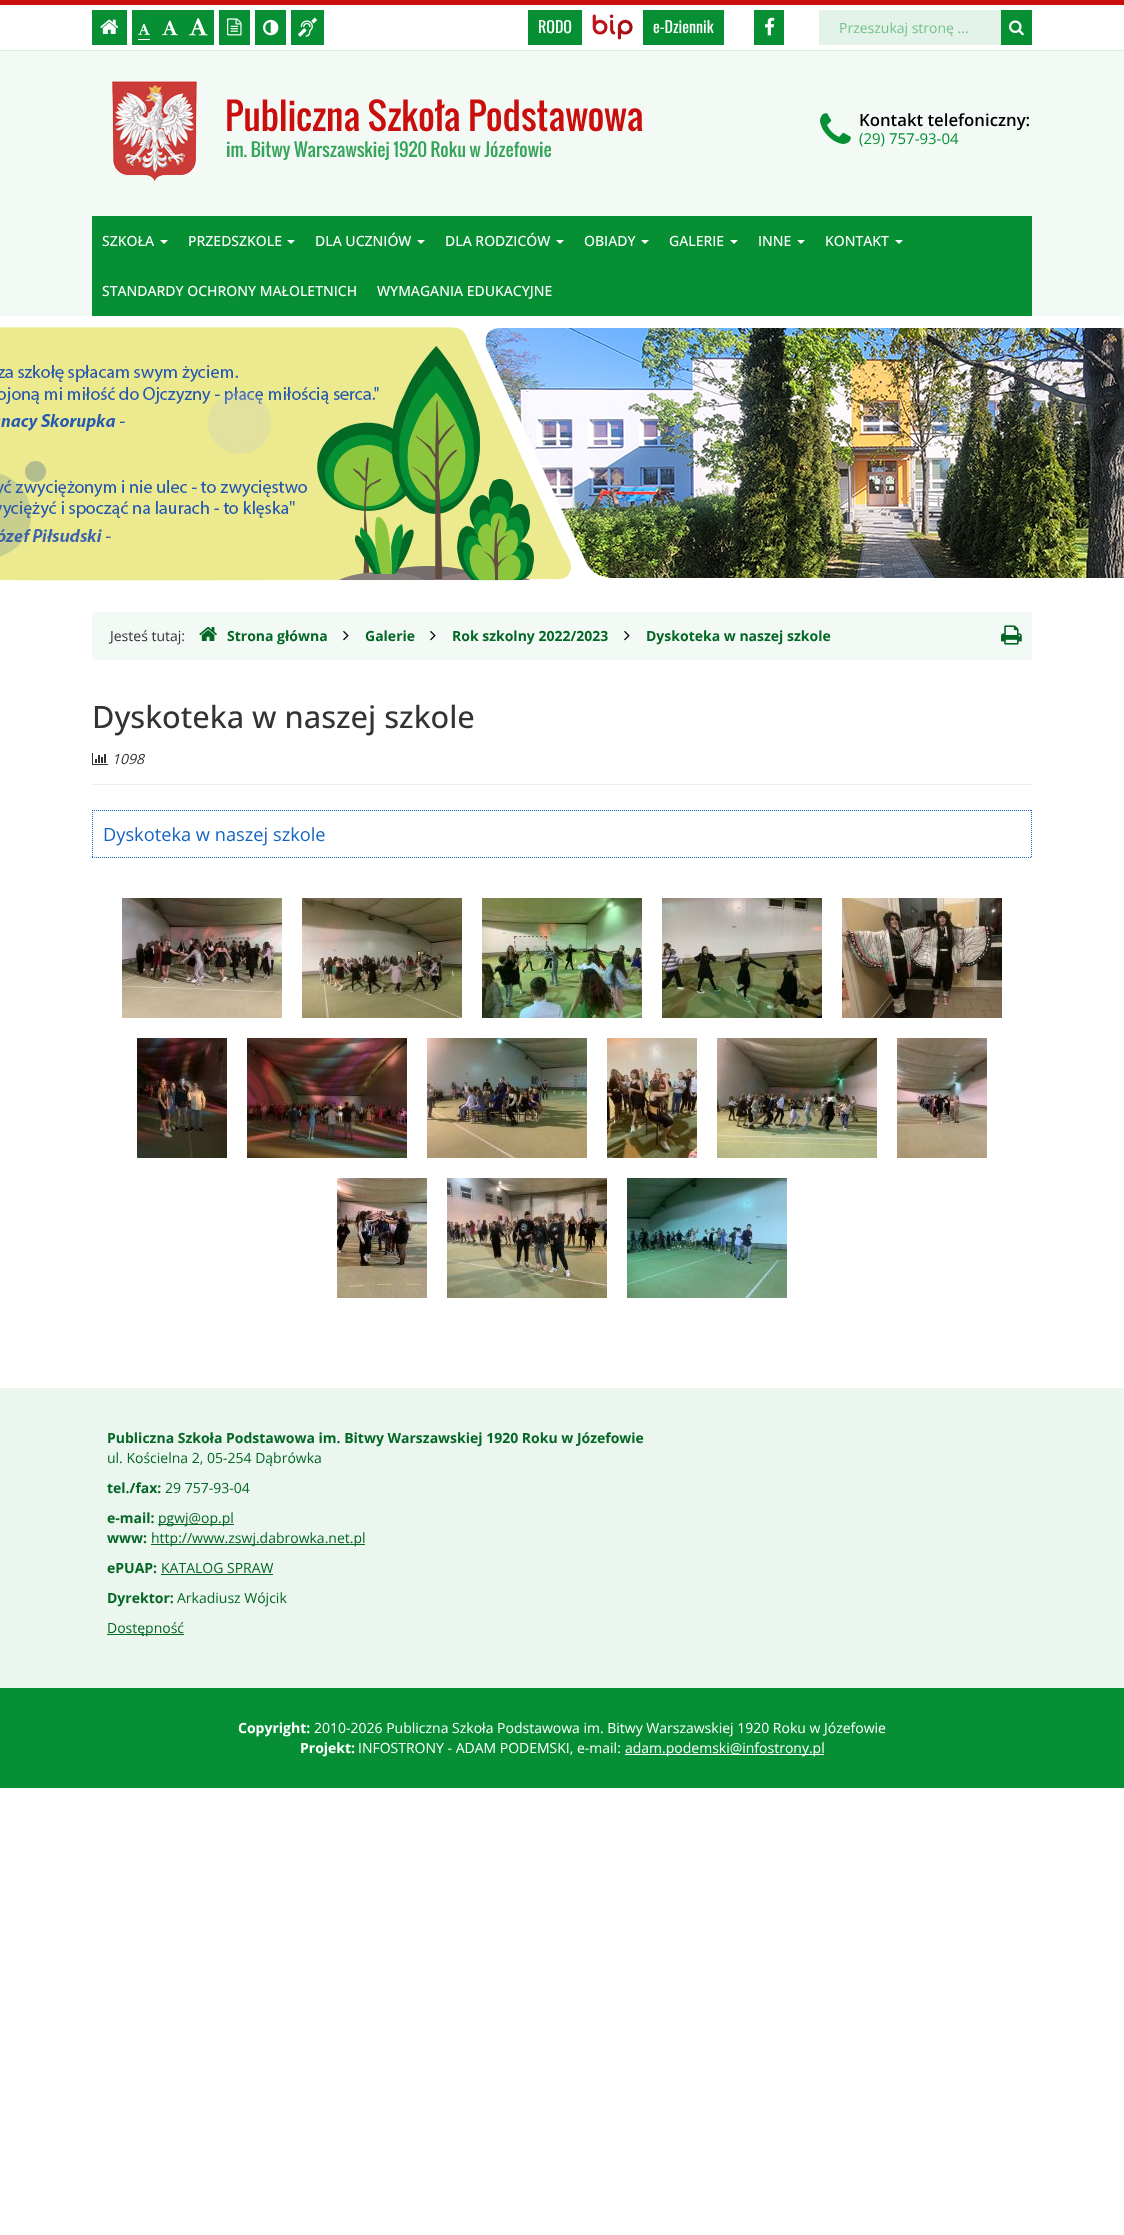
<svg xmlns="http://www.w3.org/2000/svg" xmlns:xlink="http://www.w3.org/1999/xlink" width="1124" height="2235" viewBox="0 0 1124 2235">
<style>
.cls-1{font:16px Oswald;fill:#ffffff}
.cls-2{font:14px Open Sans;fill:#75c18e}
.cls-3{font:600 16.75px Open Sans;fill:#000000}
.cls-4{font:15px Open Sans;fill:#068f33}
.cls-5{font:500 14px Open Sans;fill:#ffffff}
.cls-6{font:14px Open Sans;fill:#333333}
.cls-7{font:bold 14px Open Sans;fill:#046725}
.cls-8{font:500 30.75px Open Sans;fill:#333333}
.cls-9{font:italic 14px Open Sans;fill:#333333}
.cls-10{font:18.25px Open Sans;fill:#1464c1}
.cls-11{font:14px Open Sans;fill:#046725}
.cls-12{font:bold 14px Open Sans;fill:#ffffff}
.cls-13{font:14px Open Sans;fill:#ffffff}
</style>
<rect width="100%" height="100%" fill="#ffffff"/>
<rect fill="#ca0e0d" x="0" y="0" width="1124" height="5"/>
<rect fill="#daeee0" x="0" y="50" width="1124" height="1"/>
<rect fill="#068f33" x="92" y="10" width="35" height="35"/>
<image xlink:href="image0.png" x="100" y="19" width="19" height="15"/>
<rect fill="#068f33" x="132" y="10" width="82" height="35"/>
<rect fill="#ffffff" x="138" y="39" width="12" height="1"/>
<image xlink:href="image1.png" x="138" y="23" width="13" height="12"/>
<image xlink:href="image2.png" x="162" y="20" width="16" height="16"/>
<image xlink:href="image3.png" x="189" y="18" width="19" height="18"/>
<rect fill="#068f33" x="219" y="10" width="31" height="35"/>
<image xlink:href="image4.png" x="227" y="18" width="15" height="18"/>
<rect fill="#068f33" x="255" y="10" width="31" height="35"/>
<image xlink:href="image5.png" x="263" y="19" width="16" height="17"/>
<rect fill="#068f33" x="291" y="10" width="33" height="35"/>
<image xlink:href="image6.png" x="298" y="17" width="19" height="20"/>
<rect fill="#068f33" x="528" y="10" width="54" height="35"/>
<image xlink:href="image7.png" x="592" y="14" width="41" height="26"/>
<rect fill="#068f33" x="643" y="10" width="81" height="35"/>
<rect fill="#068f33" x="754" y="10" width="30" height="35"/>
<image xlink:href="image8.png" x="765" y="17" width="10" height="19"/>
<rect fill="#e4f3e9" x="819" y="10" width="182" height="35"/>
<rect fill="#068f33" x="1001" y="10" width="31" height="35"/>
<image xlink:href="image9.png" x="1009" y="20" width="15" height="16"/>
<rect fill="#f3faf5" x="0" y="51" width="1124" height="265"/>
<image xlink:href="image10.png" x="112" y="81" width="531" height="100"/>
<image xlink:href="image11.png" x="820" y="113" width="31" height="31"/>
<rect fill="#068f33" x="92" y="216" width="940" height="100"/>
<path fill="#ffffff" d="M160 240H168L164 244Z"/>
<path fill="#ffffff" d="M287 240H295L291 244Z"/>
<path fill="#ffffff" d="M417 240H425L421 244Z"/>
<path fill="#ffffff" d="M556 240H564L560 244Z"/>
<path fill="#ffffff" d="M641 240H649L645 244Z"/>
<path fill="#ffffff" d="M730 240H738L734 244Z"/>
<path fill="#ffffff" d="M797 240H805L801 244Z"/>
<path fill="#ffffff" d="M895 240H903L899 244Z"/>
<image xlink:href="image12.png" x="0" y="325" width="1124" height="256"/>
<rect fill="#f3f9f5" x="92" y="612" width="940" height="48"/>
<image xlink:href="image13.png" x="199" y="627" width="18" height="14"/>
<image xlink:href="image14.png" x="343" y="631" width="6" height="10"/>
<image xlink:href="image14.png" x="430" y="631" width="6" height="10"/>
<image xlink:href="image14.png" x="624" y="631" width="6" height="10"/>
<image xlink:href="image15.png" x="1001" y="625" width="21" height="20"/>
<rect fill="#eeeeee" x="92" y="784" width="940" height="1"/>
<image xlink:href="image16.png" x="92" y="753" width="16" height="12"/>
<path fill="none" stroke="#1464c1" stroke-dasharray="1 1" d="M92 810.5H1032"/>
<path fill="none" stroke="#1464c1" stroke-dasharray="1 1" d="M1031.5 810V858"/>
<path fill="none" stroke="#1464c1" stroke-dasharray="1 1" d="M92 857.5H1032"/>
<path fill="none" stroke="#1464c1" stroke-dasharray="1 1" d="M92.5 810V858"/>
<image xlink:href="image17.png" x="122" y="898" width="160" height="120"/>
<image xlink:href="image18.png" x="302" y="898" width="160" height="120"/>
<image xlink:href="image19.png" x="482" y="898" width="160" height="120"/>
<image xlink:href="image20.png" x="662" y="898" width="160" height="120"/>
<image xlink:href="image21.png" x="842" y="898" width="160" height="120"/>
<image xlink:href="image22.png" x="137" y="1038" width="90" height="120"/>
<image xlink:href="image23.png" x="247" y="1038" width="160" height="120"/>
<image xlink:href="image24.png" x="427" y="1038" width="160" height="120"/>
<image xlink:href="image25.png" x="607" y="1038" width="90" height="120"/>
<image xlink:href="image26.png" x="717" y="1038" width="160" height="120"/>
<image xlink:href="image27.png" x="897" y="1038" width="90" height="120"/>
<image xlink:href="image28.png" x="337" y="1178" width="90" height="120"/>
<image xlink:href="image29.png" x="447" y="1178" width="160" height="120"/>
<image xlink:href="image30.png" x="627" y="1178" width="160" height="120"/>
<rect fill="#ebf6ef" x="0" y="1388" width="1124" height="300"/>
<rect fill="#046725" x="158" y="1524" width="76" height="1"/>
<rect fill="#046725" x="151" y="1544" width="214" height="1"/>
<rect fill="#046725" x="161" y="1574" width="112" height="1"/>
<rect fill="#046725" x="107" y="1634" width="77" height="1"/>
<rect fill="#068f35" x="0" y="1688" width="1124" height="100"/>
<rect fill="#ffffff" x="625" y="1754" width="199" height="1"/>
<text class="cls-1" x="538" y="33">RODO</text>
<text class="cls-1" x="653" y="33">e-Dziennik</text>
<text class="cls-2" x="839" y="33">Przeszukaj stronę ...</text>
<text class="cls-3" x="859" y="126">Kontakt telefoniczny:</text>
<text class="cls-4" x="859" y="144">(29) 757-93-04</text>
<text class="cls-5" x="102" y="246">SZKOŁA</text>
<text class="cls-5" x="188" y="246">PRZEDSZKOLE</text>
<text class="cls-5" x="315" y="246">DLA UCZNIÓW</text>
<text class="cls-5" x="445" y="246">DLA RODZICÓW</text>
<text class="cls-5" x="584" y="246">OBIADY</text>
<text class="cls-5" x="669" y="246">GALERIE</text>
<text class="cls-5" x="758" y="246">INNE</text>
<text class="cls-5" x="825" y="246">KONTAKT</text>
<text class="cls-5" x="102" y="296">STANDARDY OCHRONY MAŁOLETNICH</text>
<text class="cls-5" x="377" y="296">WYMAGANIA EDUKACYJNE</text>
<text class="cls-6" x="110" y="641">Jesteś tutaj:</text>
<text class="cls-7" x="227" y="641">Strona główna</text>
<text class="cls-7" x="365" y="641">Galerie</text>
<text class="cls-7" x="452" y="641">Rok szkolny 2022/2023</text>
<text class="cls-7" x="646" y="641">Dyskoteka w naszej szkole</text>
<text class="cls-8" x="92" y="728">Dyskoteka w naszej szkole</text>
<text class="cls-9" x="112" y="764">1098</text>
<text class="cls-10" x="103" y="841">Dyskoteka w naszej szkole</text>
<text class="cls-7" x="107" y="1443">Publiczna Szkoła Podstawowa im. Bitwy Warszawskiej 1920 Roku w Józefowie</text>
<text class="cls-11" x="107" y="1463">ul. Kościelna 2, 05-254 Dąbrówka</text>
<text class="cls-7" x="107" y="1493">tel./fax:</text>
<text class="cls-11" x="165" y="1493">29 757-93-04</text>
<text class="cls-7" x="107" y="1523">e-mail:</text>
<text class="cls-11" x="158" y="1523">pgwj@op.pl</text>
<text class="cls-7" x="107" y="1543">www:</text>
<text class="cls-11" x="151" y="1543">http://www.zswj.dabrowka.net.pl</text>
<text class="cls-7" x="107" y="1573">ePUAP:</text>
<text class="cls-11" x="161" y="1573">KATALOG SPRAW</text>
<text class="cls-7" x="107" y="1603">Dyrektor:</text>
<text class="cls-11" x="177" y="1603">Arkadiusz Wójcik</text>
<text class="cls-11" x="107" y="1633">Dostępność</text>
<text class="cls-12" x="238" y="1733">Copyright:</text>
<text class="cls-13" x="314" y="1733">2010-2026 Publiczna Szkoła Podstawowa im. Bitwy Warszawskiej 1920 Roku w Józefowie</text>
<text class="cls-12" x="300" y="1753">Projekt:</text>
<text class="cls-13" x="358" y="1753">INFOSTRONY - ADAM PODEMSKI, e-mail:</text>
<text class="cls-13" x="625" y="1753">adam.podemski@infostrony.pl</text>
</svg>
